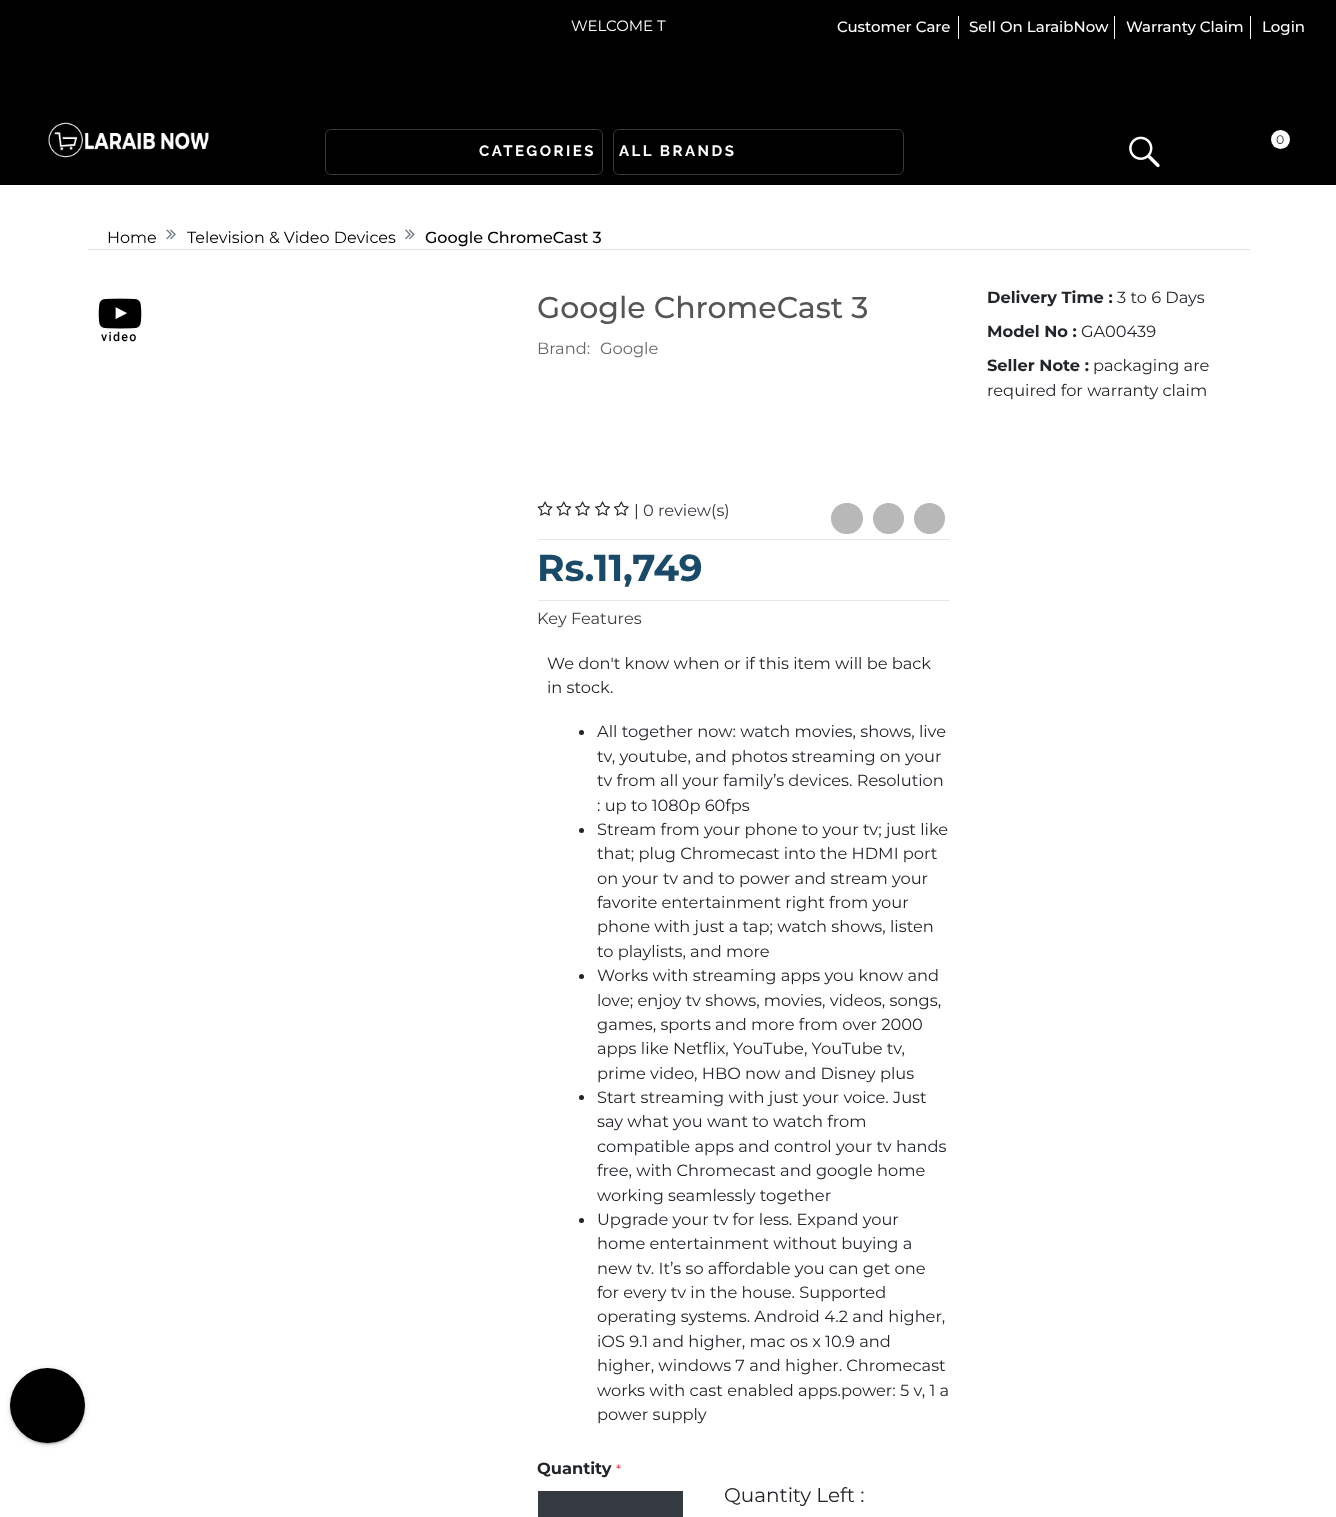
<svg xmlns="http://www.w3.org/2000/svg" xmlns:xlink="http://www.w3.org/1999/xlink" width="1336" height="1517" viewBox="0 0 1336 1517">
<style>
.cls-1{font:15px Montserrat;fill:#ffffff}
.cls-2{font:500 15px Montserrat;fill:#ffffff}
.cls-3{font:12.5px Montserrat;fill:#343a40}
.cls-4{font:bold 15px Raleway;letter-spacing:2.5px;fill:#ffffff}
.cls-5{font:16px Montserrat;fill:#000000}
.cls-6{font:500 16px Montserrat;fill:#000000}
.cls-7{font:500 12.5px Roboto;letter-spacing:1.25px;fill:#000000}
.cls-8{font:500 30px Montserrat;fill:#555555}
.cls-9{font:16.25px Montserrat;fill:#666666}
.cls-10{font:16.25px Montserrat;fill:#212529}
.cls-11{font:16.25px Montserrat;fill:#343a40}
.cls-12{font:bold 37.5px Montserrat;fill:#1b4968}
.cls-13{font:16.25px Montserrat;fill:#404040}
.cls-14{font:bold 16.25px Montserrat;fill:#212529}
.cls-15{font:13px Montserrat;fill:#dc3545}
.cls-16{font:20px Montserrat;fill:#212529}
</style>
<rect width="100%" height="100%" fill="#ffffff"/>
<rect fill="#000000" x="0" y="0" width="1336" height="185"/>
<rect fill="#ffffff" x="958" y="16" width="1" height="23"/>
<rect fill="#ffffff" x="1114" y="16" width="1" height="23"/>
<rect fill="#ffffff" x="1250" y="16" width="1" height="23"/>
<image xlink:href="image0.png" x="48" y="122" width="161" height="36"/>
<image xlink:href="image1.png" x="1129" y="136" width="31" height="32"/>
<circle fill="#ffffff" cx="1280.5" cy="139.5" r="9.5"/>
<rect fill="none" stroke="#343a40" x="325.5" y="129.5" width="277" height="45" rx="5.5"/>
<rect fill="none" stroke="#343a40" x="613.5" y="129.5" width="290" height="45" rx="5.5"/>
<rect fill="#000000" fill-opacity="0.2" filter="blur(0.5px)" x="13" y="1374" width="70" height="70" rx="35"/>
<rect fill="#000000" fill-opacity="0.12" filter="blur(3px)" x="10" y="1369" width="75" height="75" rx="37.5"/>
<rect fill="#000000" fill-opacity="0.14" filter="blur(1px)" x="10" y="1370" width="75" height="75" rx="37.5"/>
<circle fill="#000000" cx="47.5" cy="1405.5" r="37.5"/>
<rect fill="#dee2e6" x="88" y="249" width="1162" height="1"/>
<image xlink:href="image2.png" x="166" y="229" width="10" height="11"/>
<image xlink:href="image3.png" x="405" y="229" width="10" height="11"/>
<image xlink:href="image4.png" x="98" y="298" width="44" height="31"/>
<image xlink:href="image5.png" x="537" y="501" width="16" height="15"/>
<image xlink:href="image6.png" x="556" y="501" width="16" height="15"/>
<image xlink:href="image7.png" x="575" y="501" width="15" height="15"/>
<image xlink:href="image7.png" x="595" y="501" width="15" height="15"/>
<image xlink:href="image8.png" x="613" y="501" width="16" height="15"/>
<rect fill="#b8b8b8" x="831" y="503" width="32" height="31" rx="15.5"/>
<circle fill="#b8b8b8" cx="888.5" cy="518.5" r="15.5"/>
<circle fill="#b8b8b8" cx="929.5" cy="518.5" r="15.5"/>
<rect fill="#e6e6e6" x="538" y="539" width="412" height="1"/>
<rect fill="#e6e6e6" x="538" y="600" width="412" height="1"/>
<circle fill="#212529" cx="581.5" cy="732.5" r="2.5"/>
<circle fill="#212529" cx="581.5" cy="830.5" r="2.5"/>
<circle fill="#212529" cx="581.5" cy="976.5" r="2.5"/>
<circle fill="#212529" cx="581.5" cy="1097.5" r="2.5"/>
<circle fill="#212529" cx="581.5" cy="1220.5" r="2.5"/>
<rect fill="#343a40" x="538" y="1491" width="145" height="26"/>
<text class="cls-1" x="571" y="31">WELCOME T</text>
<text class="cls-2" x="837" y="32">Customer Care</text>
<text class="cls-2" x="969" y="32">Sell On LaraibNow</text>
<text class="cls-2" x="1126" y="32">Warranty Claim</text>
<text class="cls-2" x="1262" y="32">Login</text>
<text class="cls-3" x="1276" y="144">0</text>
<text class="cls-4" x="479" y="156">CATEGORIES</text>
<text class="cls-4" x="619" y="156">ALL BRANDS</text>
<text class="cls-5" x="107" y="243">Home</text>
<text class="cls-5" x="187" y="243">Television &amp; Video Devices</text>
<text class="cls-6" x="425" y="243">Google ChromeCast 3</text>
<text class="cls-7" x="101" y="341">video</text>
<text class="cls-8" x="537" y="318">Google ChromeCast 3</text>
<text class="cls-9" x="537" y="354">Brand:</text>
<text class="cls-9" x="600" y="354">Google</text>
<text class="cls-10" x="634" y="516">|</text>
<text class="cls-11" x="643" y="516">0 review(s)</text>
<text class="cls-12" x="537" y="581">Rs.11,749</text>
<text class="cls-13" x="537" y="624">Key Features</text>
<text class="cls-10"><tspan x="547" y="669">We don't know when or if this item will be back</tspan><tspan x="547" y="693">in stock.</tspan></text>
<text class="cls-10"><tspan x="597" y="737">All together now: watch movies, shows, live</tspan><tspan x="597" y="762">tv, youtube, and photos streaming on your</tspan><tspan x="597" y="786">tv from all your family’s devices. Resolution</tspan><tspan x="597" y="811">: up to 1080p 60fps</tspan><tspan x="597" y="835">Stream from your phone to your tv; just like</tspan><tspan x="597" y="859">that; plug Chromecast into the HDMI port</tspan><tspan x="597" y="884">on your tv and to power and stream your</tspan><tspan x="597" y="908">favorite entertainment right from your</tspan><tspan x="597" y="932">phone with just a tap; watch shows, listen</tspan><tspan x="597" y="957">to playlists, and more</tspan><tspan x="597" y="981">Works with streaming apps you know and</tspan><tspan x="597" y="1006">love; enjoy tv shows, movies, videos, songs,</tspan><tspan x="597" y="1030">games, sports and more from over 2000</tspan><tspan x="597" y="1054">apps like Netflix, YouTube, YouTube tv,</tspan><tspan x="597" y="1079">prime video, HBO now and Disney plus</tspan><tspan x="597" y="1103">Start streaming with just your voice. Just</tspan><tspan x="597" y="1127">say what you want to watch from</tspan><tspan x="597" y="1152">compatible apps and control your tv hands</tspan><tspan x="597" y="1176">free, with Chromecast and google home</tspan><tspan x="597" y="1201">working seamlessly together</tspan><tspan x="597" y="1225">Upgrade your tv for less. Expand your</tspan><tspan x="597" y="1249">home entertainment without buying a</tspan><tspan x="597" y="1274">new tv. It’s so affordable you can get one</tspan><tspan x="597" y="1298">for every tv in the house. Supported</tspan><tspan x="597" y="1322">operating systems. Android 4.2 and higher,</tspan><tspan x="597" y="1347">iOS 9.1 and higher, mac os x 10.9 and</tspan><tspan x="597" y="1371">higher, windows 7 and higher. Chromecast</tspan><tspan x="597" y="1396">works with cast enabled apps.power: 5 v, 1 a</tspan><tspan x="597" y="1420">power supply</tspan></text>
<text class="cls-14" x="537" y="1474">Quantity</text>
<text class="cls-15" x="616" y="1474">*</text>
<text class="cls-16" x="724" y="1502">Quantity Left :</text>
<text class="cls-14" x="987" y="303">Delivery Time :</text>
<text class="cls-10" x="1117" y="303">3 to 6 Days</text>
<text class="cls-14" x="987" y="337">Model No :</text>
<text class="cls-10" x="1081" y="337">GA00439</text>
<text class="cls-14" x="987" y="371">Seller Note :</text>
<text class="cls-10" x="1093" y="371">packaging are</text>
<text class="cls-10" x="987" y="396">required for warranty claim</text>
</svg>
